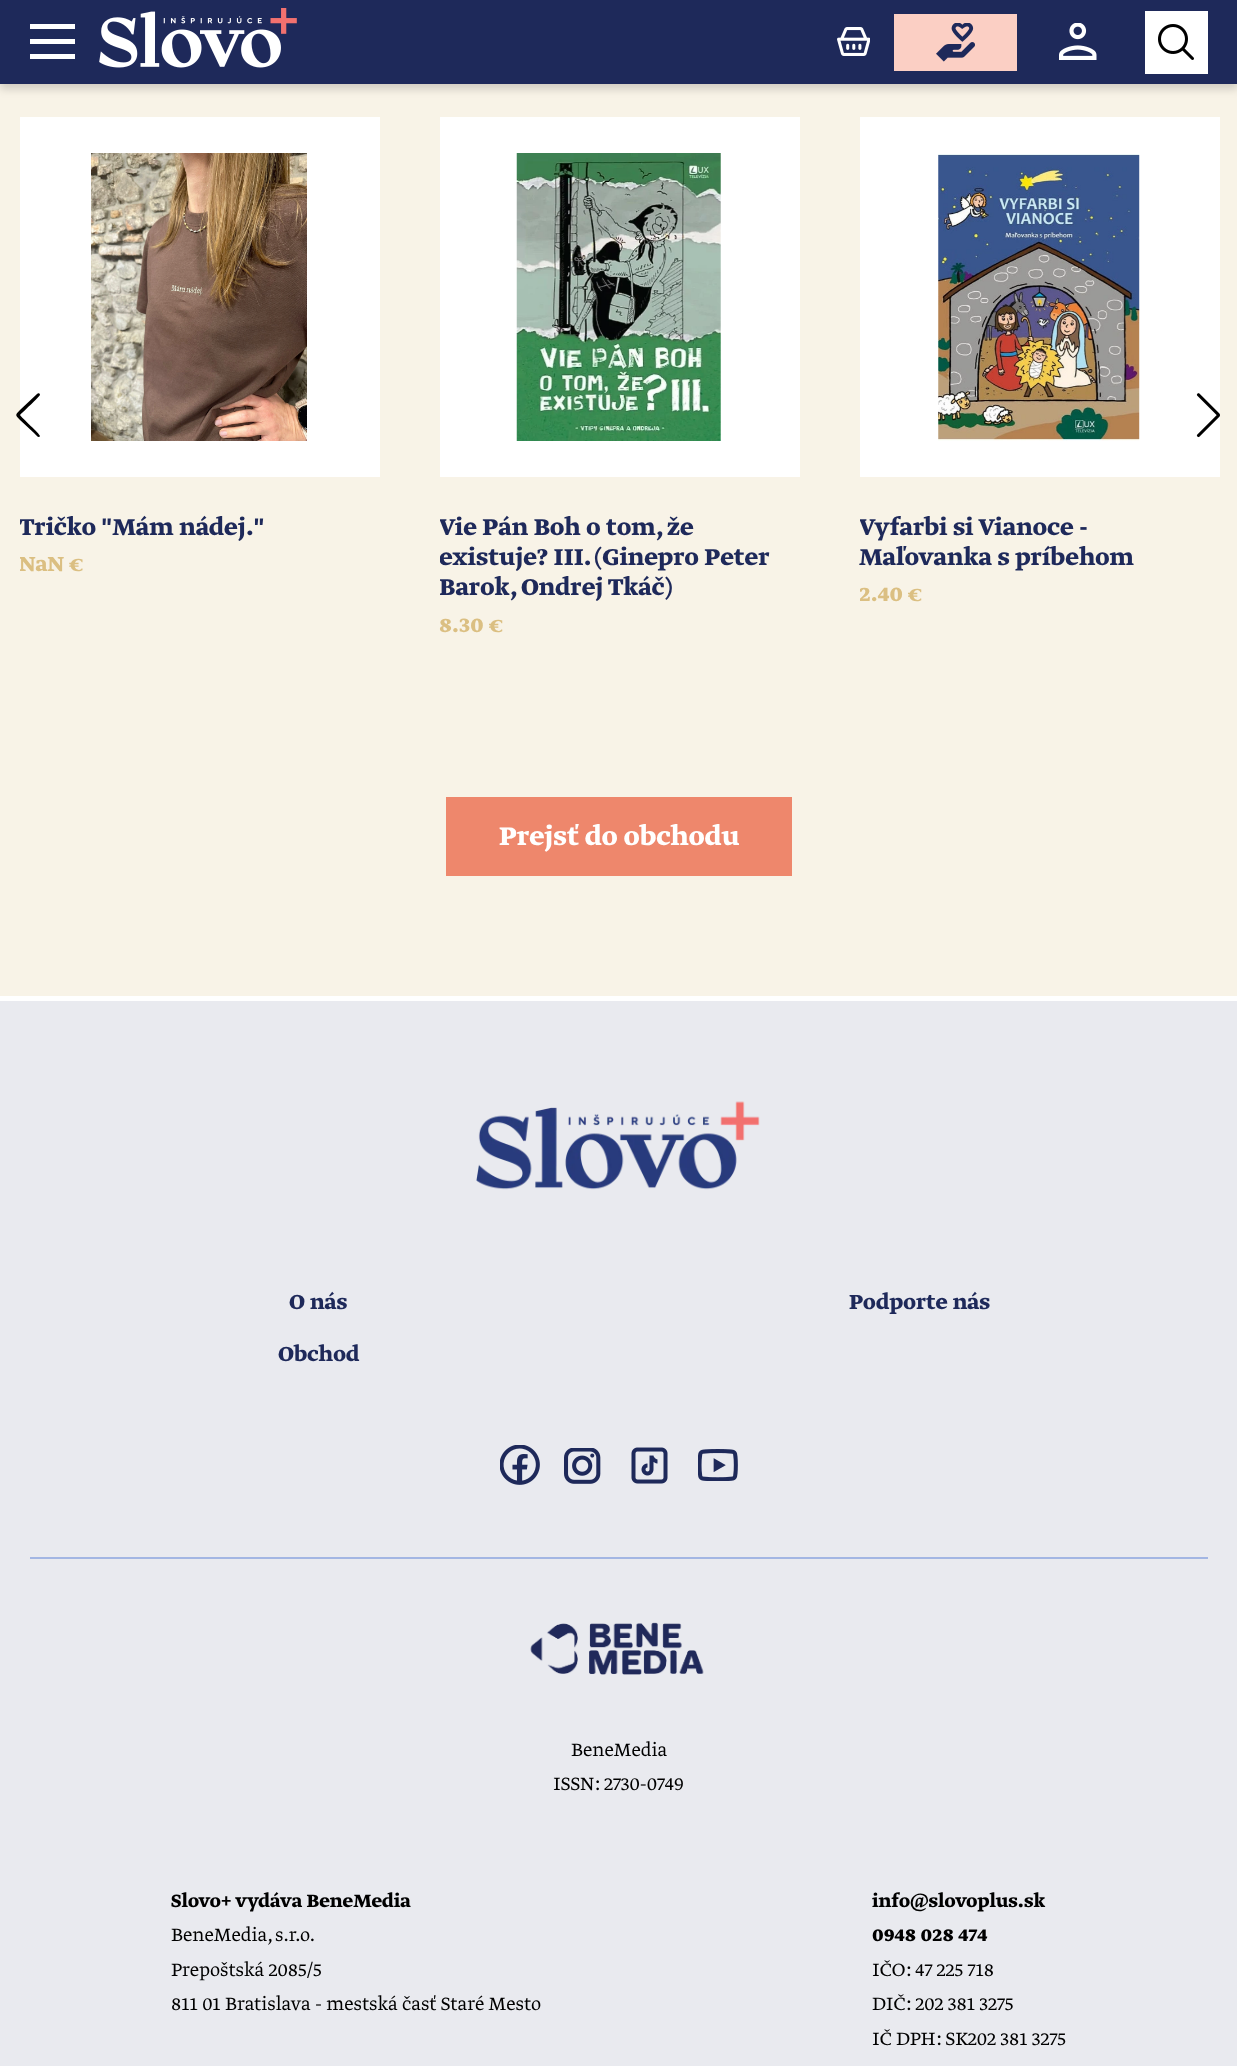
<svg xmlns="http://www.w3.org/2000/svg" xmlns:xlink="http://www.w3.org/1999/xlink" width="1237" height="2066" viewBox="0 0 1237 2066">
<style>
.cls-1{font:bold 27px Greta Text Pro;fill:#1e295a}
.cls-2{font:bold 24px Greta Text Pro;fill:#dbbf82}
.cls-3{font:bold 30px Greta Text Pro;fill:#ffffff}
.cls-4{font:bold 24px Greta Text Pro;fill:#1e295a}
.cls-5{font:300 21px Greta Text Pro;fill:#000000}
.cls-6{font:bold 21px Greta Text Pro;fill:#000000}
</style>
<defs>
<clipPath id="clip1"><rect x="20" y="117" width="360" height="474"/></clipPath>
<clipPath id="clip2"><rect x="440" y="117" width="360" height="536"/></clipPath>
<clipPath id="clip3"><rect x="860" y="117" width="360" height="504"/></clipPath>
</defs>
<rect width="100%" height="100%" fill="#f8f3e7"/>
<rect fill="#000000" fill-opacity="0.16" filter="blur(4.5px)" x="0" y="5" width="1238" height="84"/>
<rect fill="#1e295a" x="0" y="0" width="1237" height="84"/>
<rect fill="#ffffff" x="30" y="39" width="45" height="5"/>
<rect fill="#ffffff" x="30" y="24" width="45" height="5"/>
<rect fill="#ffffff" x="30" y="54" width="45" height="5"/>
<image xlink:href="image0.png" x="99" y="8" width="198" height="60"/>
<image xlink:href="image1.png" x="837" y="27" width="33" height="29"/>
<rect fill="#fbcfc4" x="894" y="14" width="123" height="57"/>
<image xlink:href="image2.png" x="936" y="23" width="39" height="39"/>
<image xlink:href="image3.png" x="1059" y="23" width="38" height="37"/>
<rect fill="#ffffff" x="1145" y="11" width="63" height="63"/>
<image xlink:href="image4.png" x="1158" y="24" width="36" height="36"/>
<rect fill="#ffffff" x="0" y="996" width="1237" height="5"/>
<rect fill="#ffffff" x="20" y="117" width="360" height="360"/>
<path fill="#000000" d="M37 394C38 393 40 393 40 395C40 396 22 413 20 415C22 418 40 434 40 436C39 439 36 435 34 433L20 420C15 415 15 415 20 410Z"/>
<rect fill="#ffffff" x="860" y="117" width="360" height="360"/>
<image xlink:href="image5.png" x="1196" y="393" width="24" height="45"/>
<image xlink:href="image6.png" x="91" y="153" width="216" height="288"/>
<rect fill="#ffffff" x="440" y="117" width="360" height="360"/>
<image xlink:href="image7.png" x="516" y="153" width="205" height="288"/>
<image xlink:href="image8.png" x="938" y="154" width="202" height="287"/>
<rect fill="#ee876c" x="446" y="797" width="346" height="79"/>
<rect fill="#e9eaef" x="0" y="1001" width="1237" height="1065"/>
<rect fill="#a3b6e3" x="30" y="1557" width="1178" height="2"/>
<image xlink:href="image9.png" x="476" y="1101" width="284" height="89"/>
<image xlink:href="image10.png" x="500" y="1445" width="40" height="40"/>
<image xlink:href="image11.png" x="564" y="1448" width="37" height="36"/>
<image xlink:href="image12.png" x="631" y="1447" width="37" height="37"/>
<image xlink:href="image13.png" x="698" y="1449" width="40" height="32"/>
<image xlink:href="image14.png" x="530" y="1622" width="174" height="53"/>
<g clip-path="url(#clip1)">
<text class="cls-1" x="19" y="535">Tričko "Mám nádej."</text>
<text class="cls-2" x="19" y="571">NaN €</text>
</g>
<g clip-path="url(#clip2)">
<text class="cls-1"><tspan x="439" y="535">Vie Pán Boh o tom, že</tspan><tspan x="439" y="565">existuje? III. (Ginepro Peter</tspan><tspan x="439" y="595">Barok, Ondrej Tkáč)</tspan></text>
</g>
<text class="cls-2" x="439" y="632">8.30 €</text>
<g clip-path="url(#clip3)">
<text class="cls-1" x="859" y="535">Vyfarbi si Vianoce -</text>
</g>
<text class="cls-1" x="859" y="565">Maľovanka s príbehom</text>
<g clip-path="url(#clip3)">
<text class="cls-2" x="859" y="601">2.40 €</text>
</g>
<text class="cls-3" x="499" y="845">Prejsť do obchodu</text>
<text class="cls-4" x="289" y="1309">O nás</text>
<text class="cls-4" x="849" y="1309">Podporte nás</text>
<text class="cls-4" x="278" y="1361">Obchod</text>
<text class="cls-5" x="571" y="1756">BeneMedia</text>
<text class="cls-5" x="553" y="1790">ISSN: 2730-0749</text>
<text class="cls-6" x="171" y="1907">Slovo+ vydáva BeneMedia</text>
<text class="cls-5"><tspan x="171" y="1941">BeneMedia, s.r.o.</tspan><tspan x="171" y="1976">Prepoštská 2085/5</tspan><tspan x="171" y="2010">811 01 Bratislava - mestská časť Staré Mesto</tspan></text>
<text class="cls-6"><tspan x="872" y="1907">info@slovoplus.sk</tspan><tspan x="872" y="1941">0948 028 474</tspan></text>
<text class="cls-5"><tspan x="872" y="1976">IČO: 47 225 718</tspan><tspan x="872" y="2010">DIČ: 202 381 3275</tspan><tspan x="872" y="2045">IČ DPH: SK202 381 3275</tspan></text>
</svg>
